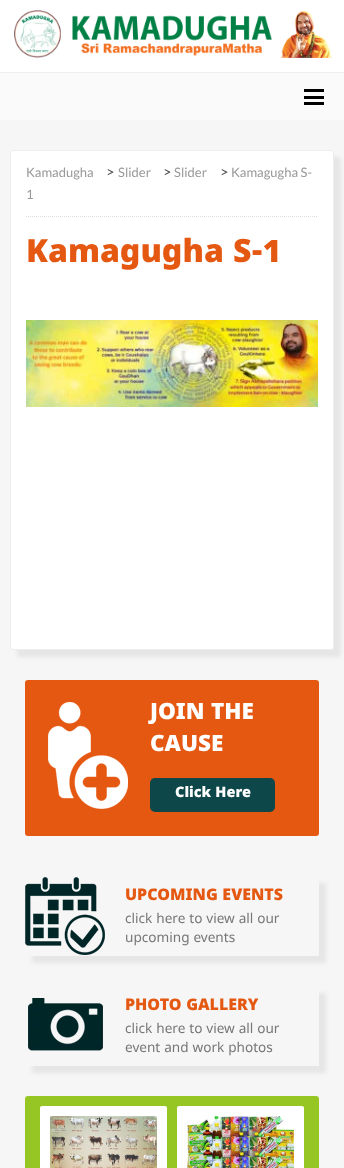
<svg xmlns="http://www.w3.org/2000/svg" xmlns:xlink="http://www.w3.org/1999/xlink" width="344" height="1168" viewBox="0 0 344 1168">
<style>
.cls-1{font:13px Lato;fill:#999999}
.cls-2{font:14.5px Lato;fill:#555555}
.cls-3{font:900 32px Noto Sans Kannada;fill:#e55812}
.cls-4{font:900 22.5px Noto Sans Kannada;fill:#ffffff}
.cls-5{font:900 14.5px Noto Sans Kannada;fill:#ffffff}
.cls-6{font:900 16px Noto Sans Kannada;fill:#e55812}
.cls-7{font:13.6px Noto Sans Kannada;fill:#777777}
</style>
<defs>
<clipPath id="clip1"><path d="M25 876H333V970H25ZM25 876H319V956H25Z" clip-rule="evenodd"/></clipPath>
<clipPath id="clip2"><path d="M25 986H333V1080H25ZM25 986H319V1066H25Z" clip-rule="evenodd"/></clipPath>
</defs>
<rect width="100%" height="100%" fill="#ffffff"/>
<image xlink:href="image0.png" x="14" y="10" width="318" height="48"/>
<rect fill="#fafafa" x="0" y="73" width="344" height="47"/>
<rect fill="#eeeeee" x="0" y="72" width="344" height="1"/>
<rect fill="#000000" x="304" y="89" width="20" height="3"/>
<rect fill="#000000" x="304" y="96" width="20" height="3"/>
<rect fill="#000000" x="304" y="102" width="20" height="3"/>
<rect fill="#f6f6f6" x="0" y="120" width="344" height="1048"/>
<rect fill="#5a5a5a" fill-opacity="0.1" filter="blur(2px)" x="17" y="157" width="324" height="500" rx="3"/>
<rect fill="#ffffff" stroke="#eeeeee" x="10.5" y="150.5" width="323" height="499" rx="2.5"/>
<path fill="none" stroke="#dddddd" stroke-dasharray="1 1" d="M26 216.5H318"/>
<image xlink:href="image1.png" x="26" y="320" width="292" height="87"/>
<rect fill="#e55812" x="25" y="680" width="294" height="156" rx="3"/>
<image xlink:href="image2.png" x="48" y="702" width="80" height="107"/>
<rect fill="#0e4749" x="150" y="778" width="125" height="34" rx="5"/>
<g clip-path="url(#clip1)">
<rect fill="#5a5a5a" fill-opacity="0.1" filter="blur(2px)" x="32" y="883" width="294" height="80"/>
</g>
<image xlink:href="image3.png" x="25" y="877" width="80" height="78"/>
<g clip-path="url(#clip2)">
<rect fill="#5a5a5a" fill-opacity="0.1" filter="blur(2px)" x="32" y="993" width="294" height="80"/>
</g>
<image xlink:href="image4.png" x="28" y="998" width="75" height="53"/>
<rect fill="#95c623" x="25" y="1096" width="294" height="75" rx="3"/>
<rect fill="#ffffff" x="40" y="1106" width="127" height="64" rx="2"/>
<image xlink:href="image5.png" x="50" y="1116" width="107" height="52"/>
<rect fill="#ffffff" x="177" y="1106" width="127" height="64" rx="2"/>
<image xlink:href="image6.png" x="187" y="1116" width="107" height="52"/>
<text class="cls-1" x="26" y="177">Kamadugha</text>
<text class="cls-2" x="106" y="177">&gt;</text>
<text class="cls-1" x="118" y="177">Slider</text>
<text class="cls-2" x="163" y="177">&gt;</text>
<text class="cls-1" x="174" y="177">Slider</text>
<text class="cls-2" x="220" y="177">&gt;</text>
<text class="cls-1" x="231" y="177">Kamagugha S-</text>
<text class="cls-1" x="26" y="199">1</text>
<text class="cls-3" x="26" y="262">Kamagugha S-1</text>
<text class="cls-4"><tspan x="150" y="719">JOIN THE</tspan><tspan x="150" y="751">CAUSE</tspan></text>
<text class="cls-5" x="175" y="797">Click Here</text>
<text class="cls-6" x="125" y="900">UPCOMING EVENTS</text>
<text class="cls-7"><tspan x="125" y="923">click here to view all our</tspan><tspan x="125" y="942">upcoming events</tspan></text>
<text class="cls-6" x="125" y="1010">PHOTO GALLERY</text>
<text class="cls-7"><tspan x="125" y="1033">click here to view all our</tspan><tspan x="125" y="1052">event and work photos</tspan></text>
</svg>
